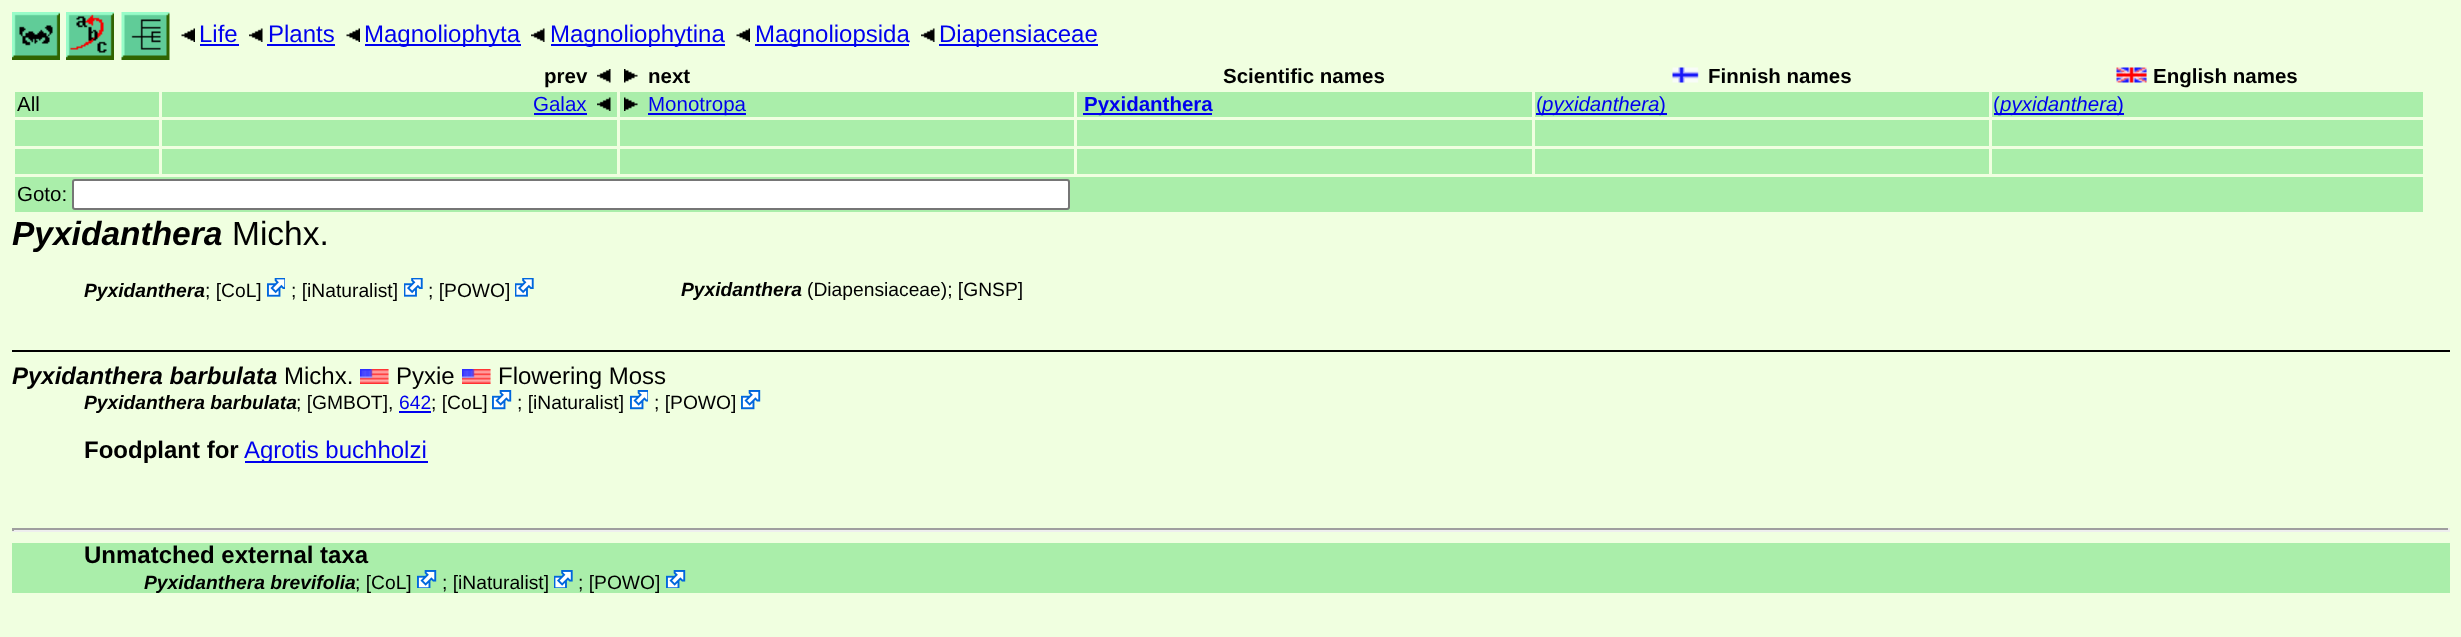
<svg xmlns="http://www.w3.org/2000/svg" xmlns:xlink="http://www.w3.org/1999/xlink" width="2461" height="637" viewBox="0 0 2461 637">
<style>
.cls-1{font:24px Liberation Sans;fill:#0000ee}
.cls-2{font:bold 20.5px Liberation Sans;fill:#000000}
.cls-3{font:20.5px Liberation Sans;fill:#000000}
.cls-4{font:20.5px Liberation Sans;fill:#0000ee}
.cls-5{font:bold 20.5px Liberation Sans;fill:#0000ee}
.cls-6{font:italic 20.5px Liberation Sans;fill:#0000ee}
.cls-7{font:italic bold 33.5px Liberation Sans;fill:#000000}
.cls-8{font:33.5px Liberation Sans;fill:#000000}
.cls-9{font:italic bold 19.25px Liberation Sans;fill:#000000}
.cls-10{font:19.25px Liberation Sans;fill:#000000}
.cls-11{font:italic bold 24px Liberation Sans;fill:#000000}
.cls-12{font:24px Liberation Sans;fill:#000000}
.cls-13{font:19.25px Liberation Sans;fill:#0000ee}
.cls-14{font:bold 24px Liberation Sans;fill:#000000}
</style>
<rect width="100%" height="100%" fill="#f0ffe0"/>
<image xlink:href="image0.png" x="12" y="12" width="48" height="48"/>
<image xlink:href="image1.png" x="66" y="12" width="48" height="48"/>
<image xlink:href="image2.png" x="121" y="12" width="49" height="48"/>
<image xlink:href="image3.png" x="181" y="28" width="14" height="14"/>
<rect fill="#0000ee" x="200" y="44" width="39" height="2"/>
<image xlink:href="image4.png" x="249" y="28" width="14" height="14"/>
<rect fill="#0000ee" x="267" y="44" width="68" height="2"/>
<image xlink:href="image3.png" x="346" y="28" width="14" height="14"/>
<rect fill="#0000ee" x="365" y="44" width="156" height="2"/>
<image xlink:href="image4.png" x="531" y="28" width="14" height="14"/>
<rect fill="#0000ee" x="551" y="44" width="174" height="2"/>
<image xlink:href="image5.png" x="736" y="28" width="14" height="14"/>
<rect fill="#0000ee" x="755" y="44" width="154" height="2"/>
<image xlink:href="image4.png" x="921" y="28" width="14" height="14"/>
<rect fill="#0000ee" x="939" y="44" width="159" height="2"/>
<image xlink:href="image6.png" x="597" y="69" width="14" height="14"/>
<image xlink:href="image7.png" x="624" y="69" width="14" height="14"/>
<image xlink:href="image8.png" x="1672" y="67" width="27" height="16"/>
<image xlink:href="image9.png" x="2116" y="67" width="31" height="16"/>
<rect fill="#aaeeaa" x="15" y="92" width="144" height="25"/>
<rect fill="#aaeeaa" x="162" y="92" width="455" height="25"/>
<rect fill="#0000ee" x="534" y="113" width="53" height="2"/>
<image xlink:href="image10.png" x="597" y="97" width="14" height="14"/>
<rect fill="#aaeeaa" x="620" y="92" width="454" height="25"/>
<image xlink:href="image11.png" x="624" y="97" width="14" height="14"/>
<rect fill="#0000ee" x="648" y="113" width="98" height="2"/>
<rect fill="#aaeeaa" x="1077" y="92" width="455" height="25"/>
<rect fill="#0000ee" x="1083" y="113" width="129" height="2"/>
<rect fill="#aaeeaa" x="1535" y="92" width="454" height="25"/>
<rect fill="#0000ee" x="1536" y="113" width="6" height="2"/>
<rect fill="#0000ee" x="1542" y="113" width="125" height="2"/>
<rect fill="#aaeeaa" x="1992" y="92" width="431" height="25"/>
<rect fill="#0000ee" x="1994" y="113" width="130" height="2"/>
<rect fill="#aaeeaa" x="15" y="120" width="144" height="26"/>
<rect fill="#aaeeaa" x="162" y="120" width="455" height="26"/>
<rect fill="#aaeeaa" x="620" y="120" width="454" height="26"/>
<rect fill="#aaeeaa" x="1077" y="120" width="455" height="26"/>
<rect fill="#aaeeaa" x="1535" y="120" width="454" height="26"/>
<rect fill="#aaeeaa" x="1992" y="120" width="431" height="26"/>
<rect fill="#aaeeaa" x="15" y="149" width="144" height="25"/>
<rect fill="#aaeeaa" x="162" y="149" width="455" height="25"/>
<rect fill="#aaeeaa" x="620" y="149" width="454" height="25"/>
<rect fill="#aaeeaa" x="1077" y="149" width="455" height="25"/>
<rect fill="#aaeeaa" x="1535" y="149" width="454" height="25"/>
<rect fill="#aaeeaa" x="1992" y="149" width="431" height="25"/>
<rect fill="#aaeeaa" x="15" y="177" width="2408" height="35"/>
<rect fill="#ffffff" stroke="#767676" stroke-width="2" x="73" y="180" width="996" height="29" rx="2"/>
<image xlink:href="image12.png" x="267" y="278" width="18" height="19"/>
<image xlink:href="image13.png" x="404" y="278" width="19" height="19"/>
<image xlink:href="image13.png" x="515" y="278" width="19" height="19"/>
<rect fill="#000000" x="12" y="350" width="2438" height="2"/>
<image xlink:href="image14.png" x="360" y="369" width="29" height="15"/>
<image xlink:href="image14.png" x="462" y="369" width="29" height="15"/>
<rect fill="#0000ee" x="399" y="411" width="32" height="2"/>
<image xlink:href="image15.png" x="492" y="390" width="20" height="20"/>
<image xlink:href="image16.png" x="630" y="390" width="18" height="20"/>
<image xlink:href="image15.png" x="741" y="390" width="20" height="20"/>
<rect fill="#0000ee" x="245" y="461" width="183" height="2"/>
<rect fill="#9f9f9f" x="12" y="528" width="2438" height="2"/>
<rect fill="#eeeeee" x="2448" y="528" width="2" height="3"/>
<rect fill="#eeeeee" x="12" y="530" width="2438" height="2"/>
<rect fill="#9f9f9f" x="12" y="528" width="2" height="3"/>
<rect fill="#aaeeaa" x="12" y="543" width="2438" height="50"/>
<image xlink:href="image17.png" x="417" y="570" width="20" height="18"/>
<image xlink:href="image18.png" x="554" y="570" width="19" height="18"/>
<image xlink:href="image17.png" x="666" y="570" width="20" height="18"/>
<text class="cls-1" x="199" y="42">Life</text>
<text class="cls-1" x="268" y="42">Plants</text>
<text class="cls-1" x="364" y="42">Magnoliophyta</text>
<text class="cls-1" x="550" y="42">Magnoliophytina</text>
<text class="cls-1" x="755" y="42">Magnoliopsida</text>
<text class="cls-1" x="939" y="42">Diapensiaceae</text>
<text class="cls-2" x="544" y="83">prev</text>
<text class="cls-2" x="648" y="83">next</text>
<text class="cls-2" x="1223" y="83">Scientific names</text>
<text class="cls-2" x="1708" y="83">Finnish names</text>
<text class="cls-2" x="2153" y="83">English names</text>
<text class="cls-3" x="17" y="111">All</text>
<text class="cls-4" x="533" y="111">Galax</text>
<text class="cls-4" x="648" y="111">Monotropa</text>
<text class="cls-5" x="1084" y="111">Pyxidanthera</text>
<text class="cls-4" x="1536" y="111">(</text>
<text class="cls-6" x="1542" y="111">pyxidanthera</text>
<text class="cls-4" x="1659" y="111">)</text>
<text class="cls-4" x="1993" y="111">(</text>
<text class="cls-6" x="2000" y="111">pyxidanthera</text>
<text class="cls-4" x="2117" y="111">)</text>
<text class="cls-3" x="17" y="201">Goto:</text>
<text class="cls-7" x="12" y="245">Pyxidanthera</text>
<text class="cls-8" x="232" y="245">Michx.</text>
<text class="cls-9" x="84" y="297">Pyxidanthera</text>
<text class="cls-10" x="205" y="297">; [CoL]</text>
<text class="cls-10" x="291" y="297">; [iNaturalist]</text>
<text class="cls-10" x="428" y="297">; [POWO]</text>
<text class="cls-9" x="681" y="296">Pyxidanthera</text>
<text class="cls-10" x="807" y="296">(Diapensiaceae); [GNSP]</text>
<text class="cls-11" x="12" y="384">Pyxidanthera barbulata</text>
<text class="cls-12" x="284" y="384">Michx.</text>
<text class="cls-12" x="396" y="384">Pyxie</text>
<text class="cls-12" x="498" y="384">Flowering Moss</text>
<text class="cls-9" x="84" y="409">Pyxidanthera barbulata</text>
<text class="cls-10" x="296" y="409">; [GMBOT],</text>
<text class="cls-13" x="399" y="409">642</text>
<text class="cls-10" x="431" y="409">; [CoL]</text>
<text class="cls-10" x="517" y="409">; [iNaturalist]</text>
<text class="cls-10" x="654" y="409">; [POWO]</text>
<text class="cls-14" x="84" y="458">Foodplant for</text>
<text class="cls-1" x="244" y="458">Agrotis buchholzi</text>
<text class="cls-14" x="84" y="563">Unmatched external taxa</text>
<text class="cls-9" x="144" y="589">Pyxidanthera brevifolia</text>
<text class="cls-10" x="355" y="589">; [CoL]</text>
<text class="cls-10" x="442" y="589">; [iNaturalist]</text>
<text class="cls-10" x="578" y="589">; [POWO]</text>
</svg>
